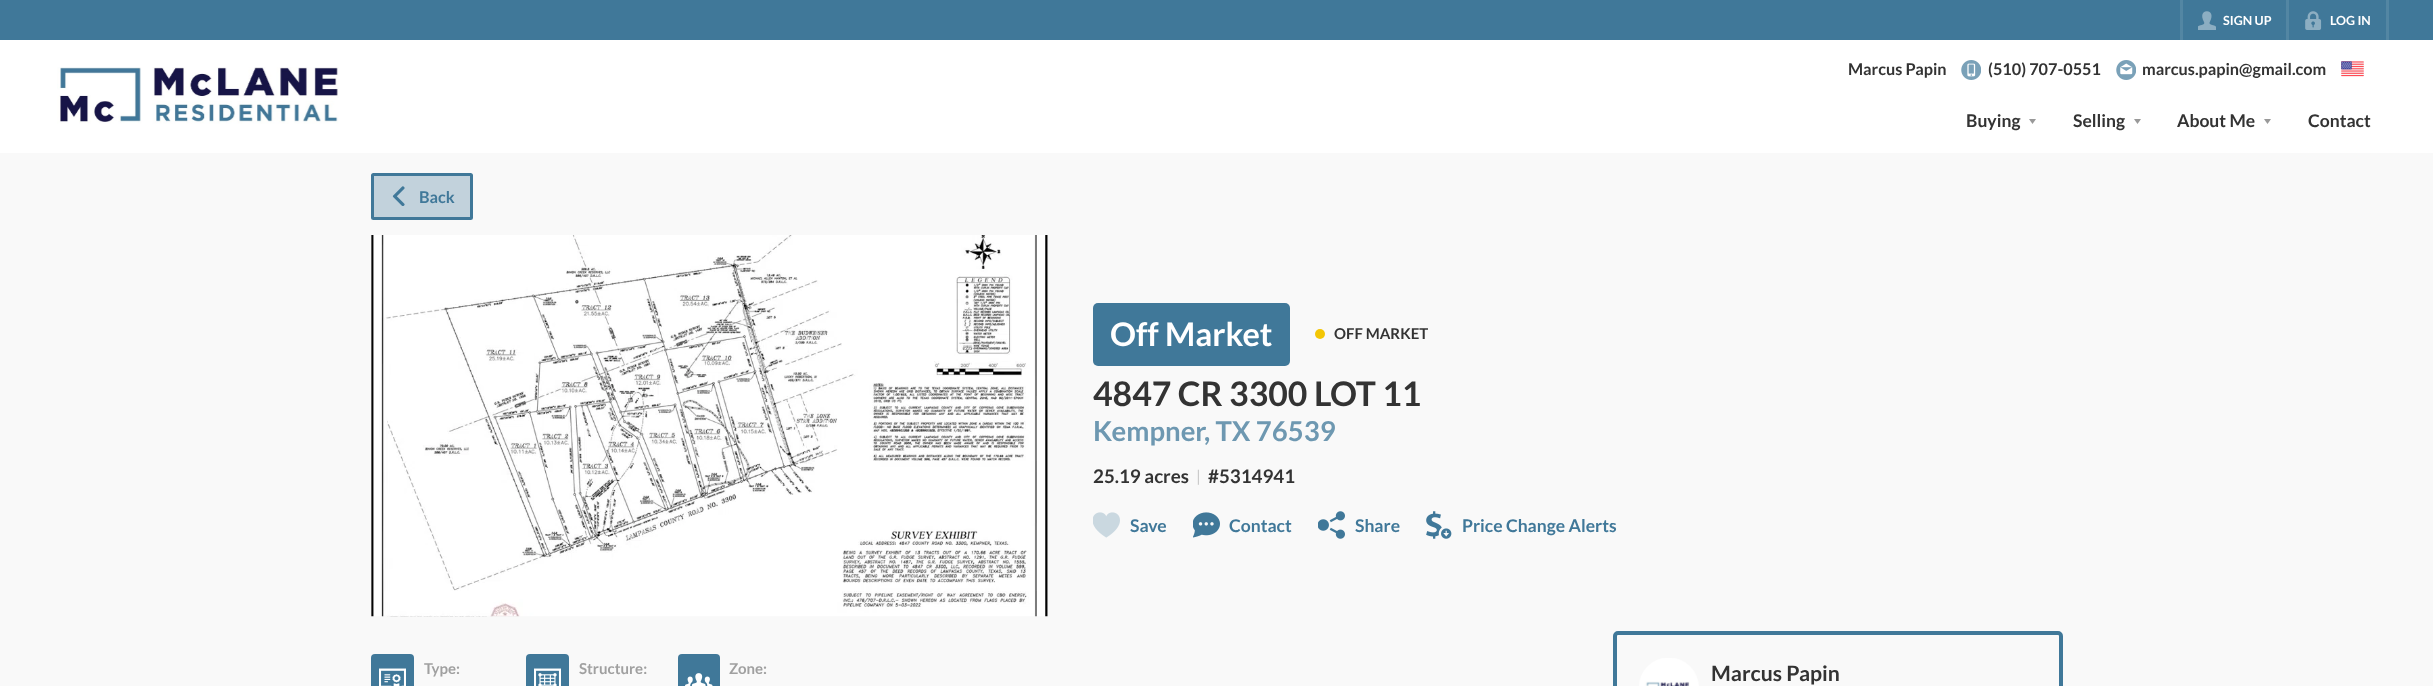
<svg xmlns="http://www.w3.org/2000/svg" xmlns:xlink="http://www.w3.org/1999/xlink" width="2433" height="686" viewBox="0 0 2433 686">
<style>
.cls-1{font:bold 12.5px Lato;fill:#ffffff}
.cls-2{font:bold 16.25px Lato;fill:#333333}
.cls-3{font:bold 17.5px Lato;fill:#333333}
.cls-4{font:bold 16.25px Lato;fill:#407899}
.cls-5{font:bold 32.5px Lato;fill:#ffffff}
.cls-6{font:bold 15px Lato;fill:#333333}
.cls-7{font:bold 33.75px Lato;fill:#333333}
.cls-8{font:bold 27.5px Lato;fill:#6e98b1}
.cls-9{font:bold 18.75px Lato;fill:#333333}
.cls-10{font:16px Lato;fill:#c8c8c8}
.cls-11{font:bold 17.5px Lato;fill:#407899}
.cls-12{font:bold 15px Lato;fill:#a0a0a0}
.cls-13{font:bold 21.25px Lato;fill:#333333}
</style>
<rect width="100%" height="100%" fill="#ffffff"/>
<rect fill="#407899" x="0" y="0" width="2433" height="40"/>
<rect fill="#5386a3" x="2386" y="0" width="3" height="40"/>
<rect fill="#5386a3" x="2180" y="0" width="3" height="40"/>
<image xlink:href="image0.png" x="2198" y="11" width="18" height="19"/>
<rect fill="#5386a3" x="2286" y="0" width="3" height="40"/>
<image xlink:href="image1.png" x="2305" y="11" width="17" height="19"/>
<image xlink:href="image2.png" x="57" y="67" width="282" height="57"/>
<image xlink:href="image3.png" x="1961" y="60" width="20" height="20"/>
<image xlink:href="image4.png" x="2116" y="60" width="20" height="20"/>
<image xlink:href="image5.png" x="2341" y="61" width="23" height="16"/>
<path fill="#999999" d="M2029 119H2036L2032.5 124Z"/>
<path fill="#999999" d="M2134 119H2141L2137.5 124Z"/>
<path fill="#999999" d="M2264 119H2271L2267.5 124Z"/>
<rect fill="#f9f9f9" x="0" y="153" width="2433" height="533"/>
<rect fill="#c2d2dc" stroke="#407899" stroke-width="3" x="372.5" y="174.5" width="99" height="44" rx="1"/>
<image xlink:href="image6.png" x="392" y="186" width="13" height="20"/>
<image xlink:href="image7.png" x="371" y="235" width="677" height="382"/>
<rect fill="#407899" x="1093" y="303" width="197" height="63" rx="5"/>
<circle fill="#f3c605" cx="1320" cy="334" r="5"/>
<image xlink:href="image8.png" x="1093" y="512" width="27" height="26"/>
<image xlink:href="image9.png" x="1193" y="512" width="27" height="26"/>
<image xlink:href="image10.png" x="1318" y="511" width="27" height="28"/>
<image xlink:href="image11.png" x="1426" y="511" width="26" height="28"/>
<rect fill="#407899" x="371" y="654" width="43" height="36" rx="4"/>
<image xlink:href="image12.png" x="379" y="668" width="27" height="18"/>
<rect fill="#407899" x="526" y="654" width="43" height="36" rx="4"/>
<image xlink:href="image13.png" x="534" y="668" width="27" height="18"/>
<rect fill="#407899" x="678" y="654" width="42" height="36" rx="4"/>
<image xlink:href="image14.png" x="685" y="673" width="28" height="13"/>
<rect fill="none" stroke="#407899" stroke-width="4" x="1615" y="633" width="446" height="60" rx="3"/>
<image xlink:href="image15.png" x="1639" y="658" width="60" height="28"/>
<text class="cls-1" x="2223" y="25">SIGN UP</text>
<text class="cls-1" x="2330" y="25">LOG IN</text>
<text class="cls-2" x="1848" y="75">Marcus Papin</text>
<text class="cls-2" x="1988" y="75">(510) 707-0551</text>
<text class="cls-2" x="2142" y="75">marcus.papin@gmail.com</text>
<text class="cls-3" x="1966" y="127">Buying</text>
<text class="cls-3" x="2073" y="127">Selling</text>
<text class="cls-3" x="2177" y="127">About Me</text>
<text class="cls-3" x="2308" y="127">Contact</text>
<text class="cls-4" x="419" y="203">Back</text>
<text class="cls-5" x="1110" y="346">Off Market</text>
<text class="cls-6" x="1334" y="339">OFF MARKET</text>
<text class="cls-7" x="1093" y="406">4847 CR 3300 LOT 11</text>
<text class="cls-8" x="1093" y="441">Kempner</text>
<text class="cls-8" x="1204" y="441">, TX 76539</text>
<text class="cls-9" x="1093" y="483">25.19 acres</text>
<text class="cls-10" x="1196" y="482">|</text>
<text class="cls-9" x="1208" y="483">#5314941</text>
<text class="cls-11" x="1130" y="532">Save</text>
<text class="cls-11" x="1229" y="532">Contact</text>
<text class="cls-11" x="1355" y="532">Share</text>
<text class="cls-11" x="1462" y="532">Price Change Alerts</text>
<text class="cls-12" x="424" y="674">Type:</text>
<text class="cls-12" x="579" y="674">Structure:</text>
<text class="cls-12" x="729" y="674">Zone:</text>
<text class="cls-13" x="1711" y="681">Marcus Papin</text>
</svg>
